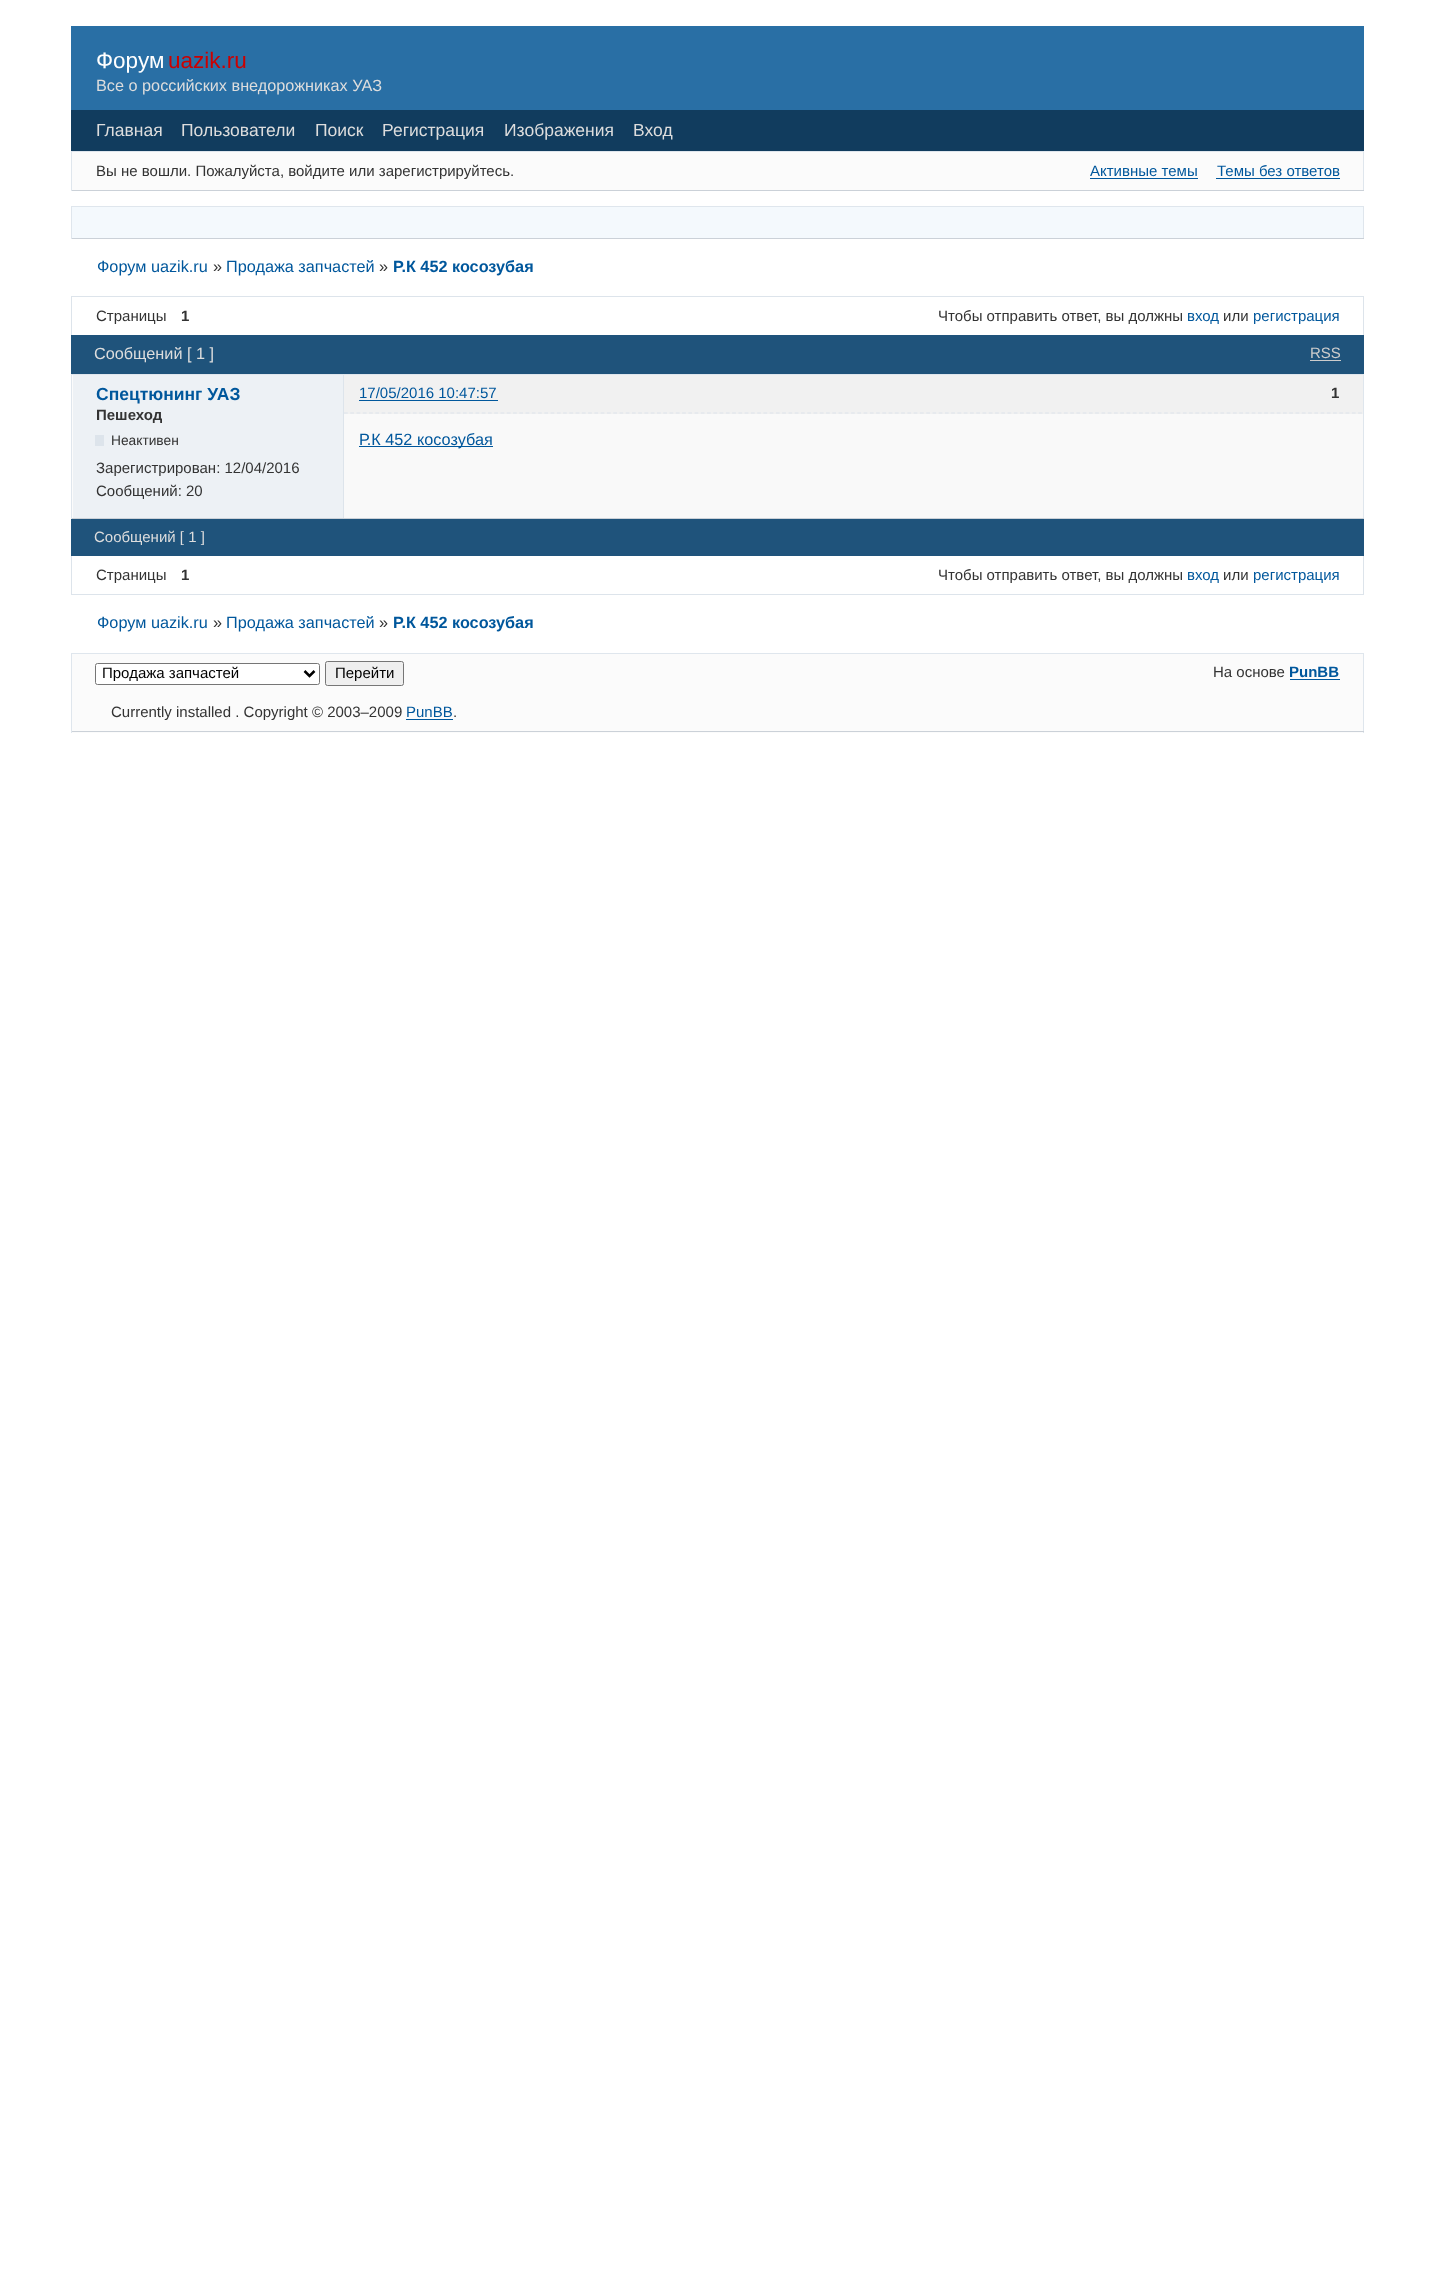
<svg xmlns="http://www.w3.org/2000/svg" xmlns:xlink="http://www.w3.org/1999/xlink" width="1435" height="2296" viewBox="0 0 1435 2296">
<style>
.cls-1{font:22.5px Liberation Sans;fill:#ffffff}
.cls-2{font:22.5px Liberation Sans;fill:#cc0000}
.cls-3{font:16.25px Liberation Sans;fill:#dddddd}
.cls-4{font:17.5px Liberation Sans;fill:#dddddd}
.cls-5{font:15px Liberation Sans;fill:#333333}
.cls-6{font:15px Liberation Sans;fill:#00579c}
.cls-7{font:16.25px Liberation Sans;fill:#00579c}
.cls-8{font:16.25px Liberation Sans;fill:#333333}
.cls-9{font:bold 16.25px Liberation Sans;fill:#00579c}
.cls-10{font:bold 15px Liberation Sans;fill:#333333}
.cls-11{font:15px Liberation Sans;fill:#cccccc}
.cls-12{font:bold 17.5px Liberation Sans;fill:#00579c}
.cls-13{font:13.75px Liberation Sans;fill:#333333}
.cls-14{font:15px Liberation Sans;fill:#dddddd}
.cls-15{font:15px Liberation Sans;fill:#000000}
.cls-16{font:bold 15px Liberation Sans;fill:#00579c}
</style>
<rect width="100%" height="100%" fill="#ffffff"/>
<rect fill="#296fa5" x="71" y="26" width="1293" height="84"/>
<rect fill="#113c5e" x="71" y="110" width="1293" height="41"/>
<rect fill="#fbfbfb" x="72" y="152" width="1291" height="38"/>
<rect fill="#dfe6ed" x="71" y="151" width="1293" height="1"/>
<rect fill="#dfe6ed" x="1363" y="151" width="1" height="40"/>
<rect fill="#cbd1d8" x="71" y="190" width="1293" height="1"/>
<rect fill="#dfe6ed" x="71" y="151" width="1" height="40"/>
<rect fill="#00579c" x="1090" y="178" width="108" height="1"/>
<rect fill="#00579c" x="1216" y="178" width="124" height="1"/>
<rect fill="#f4f9fd" x="72" y="207" width="1291" height="31"/>
<rect fill="#dfe6ed" x="71" y="206" width="1293" height="1"/>
<rect fill="#dfe6ed" x="1363" y="206" width="1" height="33"/>
<rect fill="#cbd1d8" x="71" y="238" width="1293" height="1"/>
<rect fill="#dfe6ed" x="71" y="206" width="1" height="33"/>
<rect fill="#dde4eb" x="71" y="296" width="1293" height="1"/>
<rect fill="#dde4eb" x="1363" y="296" width="1" height="39"/>
<rect fill="#dde4eb" x="71" y="296" width="1" height="39"/>
<rect fill="#1f537b" x="71" y="335" width="1293" height="39"/>
<rect fill="#cccccc" x="1310" y="360" width="31" height="1"/>
<rect fill="#fbfbfb" x="72" y="375" width="1" height="143"/>
<rect fill="#dfe6ed" x="71" y="374" width="1293" height="1"/>
<rect fill="#dfe6ed" x="1363" y="374" width="1" height="145"/>
<rect fill="#cbd1d8" x="71" y="518" width="1293" height="1"/>
<rect fill="#dfe6ed" x="71" y="374" width="1" height="145"/>
<rect fill="#edf1f5" x="73" y="375" width="270" height="143"/>
<rect fill="#dde4eb" x="343" y="375" width="1" height="143"/>
<rect fill="#f1f1f1" x="344" y="375" width="1019" height="39"/>
<path fill="none" stroke="#dde4eb" stroke-width="1.2" stroke-dasharray="3.75 2.51" d="M344 413H1362.5"/>
<rect fill="#00579c" x="359" y="400" width="139" height="1"/>
<rect fill="#f9f9f9" x="344" y="414" width="1019" height="104"/>
<rect fill="#dde4eb" x="95" y="435" width="9" height="11"/>
<rect fill="#00579c" x="359" y="446" width="134" height="1"/>
<rect fill="#1f537b" x="71" y="519" width="1293" height="37"/>
<rect fill="#dde4eb" x="1363" y="556" width="1" height="39"/>
<rect fill="#dde4eb" x="71" y="594" width="1293" height="1"/>
<rect fill="#dde4eb" x="71" y="556" width="1" height="39"/>
<rect fill="#fbfbfb" x="72" y="654" width="1291" height="79"/>
<rect fill="#dfe6ed" x="71" y="653" width="1293" height="1"/>
<rect fill="#dfe6ed" x="1363" y="653" width="1" height="80"/>
<rect fill="#cbd1d8" x="71" y="731" width="1293" height="1"/>
<rect fill="#dfe6ed" x="71" y="653" width="1" height="80"/>
<rect fill="#ffffff" stroke="#767676" x="95.5" y="663.5" width="224" height="21" rx="2"/>
<path fill="none" stroke="#000000" stroke-width="2.5" d="M304.5 671L309.5 676L314.5 671"/>
<rect fill="#efefef" stroke="#767676" x="325.5" y="661.5" width="78" height="24" rx="2"/>
<rect fill="#00579c" x="1290" y="679" width="50" height="1"/>
<rect fill="#00579c" x="406" y="719" width="47" height="1"/>
<text class="cls-1" x="96" y="68">Форум</text>
<text class="cls-2" x="168" y="68">uazik.ru</text>
<text class="cls-3" x="96" y="91">Все о российских внедорожниках УАЗ</text>
<text class="cls-4" x="96" y="136">Главная</text>
<text class="cls-4" x="181" y="136">Пользователи</text>
<text class="cls-4" x="315" y="136">Поиск</text>
<text class="cls-4" x="382" y="136">Регистрация</text>
<text class="cls-4" x="504" y="136">Изображения</text>
<text class="cls-4" x="633" y="136">Вход</text>
<text class="cls-5" x="96" y="176">Вы не вошли. Пожалуйста, войдите или зарегистрируйтесь.</text>
<text class="cls-6" x="1090" y="176">Активные темы</text>
<text class="cls-6" x="1217" y="176">Темы без ответов</text>
<text class="cls-7" x="97" y="272">Форум uazik.ru</text>
<text class="cls-8" x="213" y="272">»</text>
<text class="cls-7" x="226" y="272">Продажа запчастей</text>
<text class="cls-8" x="379" y="272">»</text>
<text class="cls-9" x="393" y="272">Р.К 452 косозубая</text>
<text class="cls-5" x="96" y="321">Страницы</text>
<text class="cls-10" x="181" y="321">1</text>
<text class="cls-5" x="938" y="321">Чтобы отправить ответ, вы должны</text>
<text class="cls-6" x="1187" y="321">вход</text>
<text class="cls-5" x="1223" y="321">или</text>
<text class="cls-6" x="1253" y="321">регистрация</text>
<text class="cls-3" x="94" y="359">Сообщений [ 1 ]</text>
<text class="cls-11" x="1310" y="358">RSS</text>
<text class="cls-12" x="96" y="400">Спецтюнинг УАЗ</text>
<text class="cls-6" x="359" y="398">17/05/2016 10:47:57</text>
<text class="cls-10" x="1331" y="398">1</text>
<text class="cls-10" x="96" y="420">Пешеход</text>
<text class="cls-13" x="111" y="445">Неактивен</text>
<text class="cls-5"><tspan x="96" y="473">Зарегистрирован: 12/04/2016</tspan><tspan x="96" y="496">Сообщений: 20</tspan></text>
<text class="cls-7" x="359" y="445">Р.К 452 косозубая</text>
<text class="cls-14" x="94" y="542">Сообщений [ 1 ]</text>
<text class="cls-5" x="96" y="580">Страницы</text>
<text class="cls-10" x="181" y="580">1</text>
<text class="cls-5" x="938" y="580">Чтобы отправить ответ, вы должны</text>
<text class="cls-6" x="1187" y="580">вход</text>
<text class="cls-5" x="1223" y="580">или</text>
<text class="cls-6" x="1253" y="580">регистрация</text>
<text class="cls-7" x="97" y="628">Форум uazik.ru</text>
<text class="cls-8" x="213" y="628">»</text>
<text class="cls-7" x="226" y="628">Продажа запчастей</text>
<text class="cls-8" x="379" y="628">»</text>
<text class="cls-9" x="393" y="628">Р.К 452 косозубая</text>
<text class="cls-15" x="102" y="678">Продажа запчастей</text>
<text class="cls-15" x="335" y="678">Перейти</text>
<text class="cls-5" x="1213" y="677">На основе</text>
<text class="cls-16" x="1289" y="677">PunBB</text>
<text class="cls-5" x="111" y="717">Currently installed . Copyright © 2003–2009</text>
<text class="cls-6" x="406" y="717">PunBB</text>
<text class="cls-5" x="453" y="717">.</text>
</svg>
